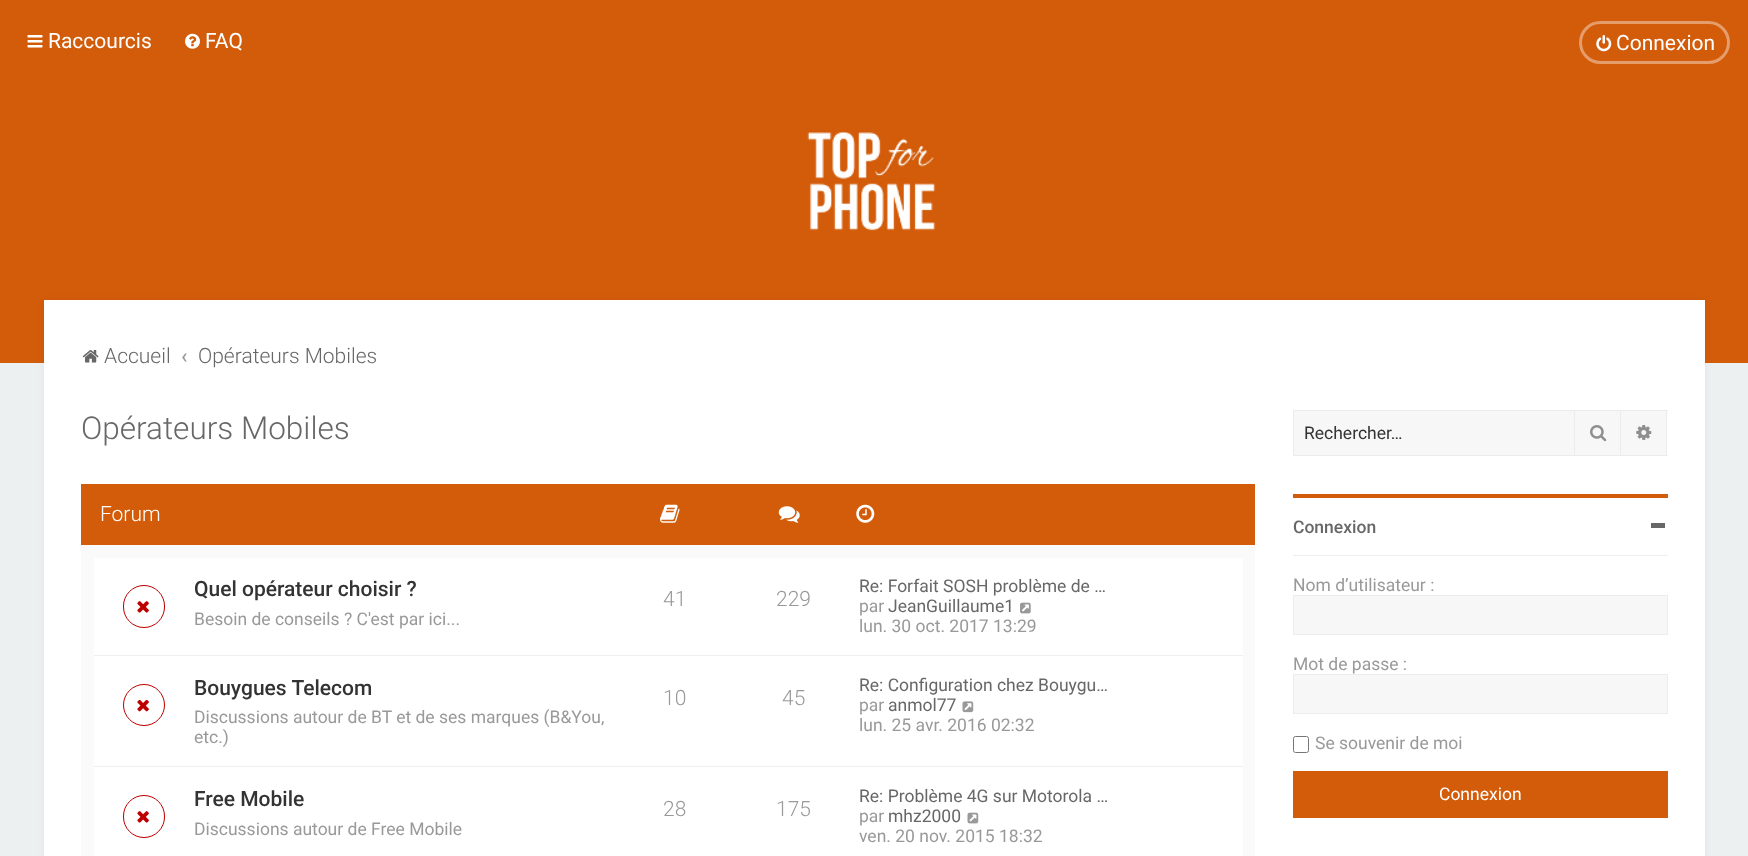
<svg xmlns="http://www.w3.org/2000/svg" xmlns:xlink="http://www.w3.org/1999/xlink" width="1748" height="856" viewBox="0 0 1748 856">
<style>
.cls-1{font:21px Roboto;fill:#ffffff}
.cls-2{font:300 21px Roboto;fill:#676767}
.cls-3{font:500 21px Roboto;fill:#999999}
.cls-4{font:300 31.5px Roboto;fill:#676767}
.cls-5{font:300 21px Roboto;fill:#ffffff}
.cls-6{font:500 21px Roboto;fill:#333333}
.cls-7{font:17.5px Roboto;fill:#999999}
.cls-8{font:300 21px Roboto;fill:#999999}
.cls-9{font:17.5px Roboto;fill:#676767}
.cls-10{font:17.5px Roboto;fill:#333333}
.cls-11{font:500 17.5px Roboto;fill:#676767}
.cls-12{font:17.5px Roboto;fill:#ffffff}
</style>
<rect width="100%" height="100%" fill="#ecf0f1"/>
<rect fill="#d35c0a" x="0" y="0" width="1748" height="363"/>
<image xlink:href="image0.png" x="807" y="131" width="129" height="100"/>
<image xlink:href="image1.png" x="27" y="35" width="16" height="13"/>
<image xlink:href="image2.png" x="185" y="33" width="15" height="16"/>
<rect fill="none" stroke="#e59d6c" stroke-width="3" x="1580.5" y="22.5" width="148" height="40" rx="20"/>
<image xlink:href="image3.png" x="1596" y="35" width="16" height="17"/>
<rect fill="#000000" fill-opacity="0.05" filter="blur(3px)" x="44" y="300" width="1661" height="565"/>
<rect fill="#ffffff" x="44" y="300" width="1661" height="556"/>
<image xlink:href="image4.png" x="82" y="350" width="17" height="13"/>
<rect fill="#fafafa" x="81" y="545" width="1174" height="311"/>
<rect fill="#d35c0a" x="81" y="484" width="1174" height="61"/>
<image xlink:href="image5.png" x="660" y="504" width="20" height="19"/>
<image xlink:href="image6.png" x="778" y="506" width="22" height="17"/>
<image xlink:href="image7.png" x="856" y="504" width="19" height="19"/>
<rect fill="#ffffff" x="94" y="558" width="1149" height="97"/>
<rect fill="#ecf0f1" x="94" y="655" width="1149" height="1"/>
<rect fill="none" stroke="#bd0000" x="123.5" y="585.5" width="41" height="42" rx="20.5"/>
<image xlink:href="image8.png" x="137" y="601" width="12" height="12"/>
<image xlink:href="image9.png" x="1020" y="602" width="11" height="12"/>
<rect fill="#ffffff" x="94" y="656" width="1149" height="200"/>
<rect fill="#ecf0f1" x="94" y="766" width="1149" height="1"/>
<circle fill="none" stroke="#bd0000" cx="144" cy="705" r="20.5"/>
<image xlink:href="image10.png" x="137" y="699" width="12" height="13"/>
<image xlink:href="image11.png" x="962" y="701" width="12" height="12"/>
<rect fill="none" stroke="#bd0000" x="123.5" y="795.5" width="41" height="42" rx="20.5"/>
<image xlink:href="image8.png" x="137" y="811" width="12" height="12"/>
<image xlink:href="image12.png" x="967" y="812" width="12" height="12"/>
<rect fill="#f7f7f7" x="1294" y="411" width="280" height="44"/>
<rect fill="#edecec" x="1293" y="410" width="281" height="1"/>
<rect fill="#edecec" x="1293" y="455" width="281" height="1"/>
<rect fill="#edecec" x="1293" y="410" width="1" height="46"/>
<rect fill="#f7f7f7" stroke="#edecec" x="1574.5" y="410.5" width="46" height="45"/>
<image xlink:href="image13.png" x="1590" y="425" width="17" height="17"/>
<rect fill="#f7f7f7" x="1621" y="411" width="45" height="44"/>
<rect fill="#edecec" x="1621" y="410" width="47" height="1"/>
<rect fill="#edecec" x="1666" y="410" width="1" height="46"/>
<rect fill="#edecec" x="1621" y="455" width="47" height="1"/>
<image xlink:href="image14.png" x="1636" y="425" width="16" height="15"/>
<rect fill="#d35c0a" x="1293" y="494" width="375" height="4"/>
<rect fill="#676767" x="1651" y="523" width="14" height="5"/>
<rect fill="#ecf0f1" x="1293" y="555" width="375" height="1"/>
<rect fill="#f7f7f7" stroke="#edecec" x="1293.5" y="595.5" width="374" height="39"/>
<rect fill="#f7f7f7" stroke="#edecec" x="1293.5" y="674.5" width="374" height="39"/>
<rect fill="none" stroke="#767676" x="1293.5" y="736.5" width="15" height="16" rx="2"/>
<rect fill="#d35c0a" x="1293" y="771" width="375" height="47"/>
<text class="cls-1" x="48" y="48">Raccourcis</text>
<text class="cls-1" x="205" y="48">FAQ</text>
<text class="cls-1" x="1616" y="50">Connexion</text>
<text class="cls-2" x="104" y="363">Accueil</text>
<text class="cls-3" x="181" y="363">‹</text>
<text class="cls-2" x="198" y="363">Opérateurs Mobiles</text>
<text class="cls-4" x="81" y="439">Opérateurs Mobiles</text>
<text class="cls-5" x="100" y="521">Forum</text>
<text class="cls-6" x="194" y="596">Quel opérateur choisir ?</text>
<text class="cls-7" x="194" y="625">Besoin de conseils ? C'est par ici...</text>
<text class="cls-8" x="663" y="606">41</text>
<text class="cls-8" x="776" y="606">229</text>
<text class="cls-9" x="859" y="592">Re: Forfait SOSH problème de …</text>
<text class="cls-7" x="859" y="612">par</text>
<text class="cls-9" x="888" y="612">JeanGuillaume1</text>
<text class="cls-7" x="859" y="632">lun. 30 oct. 2017 13:29</text>
<text class="cls-6" x="194" y="695">Bouygues Telecom</text>
<text class="cls-7"><tspan x="194" y="723">Discussions autour de BT et de ses marques (B&amp;You,</tspan><tspan x="194" y="743">etc.)</tspan></text>
<text class="cls-8" x="663" y="705">10</text>
<text class="cls-8" x="782" y="705">45</text>
<text class="cls-9" x="859" y="691">Re: Configuration chez Bouygu…</text>
<text class="cls-7" x="859" y="711">par</text>
<text class="cls-9" x="888" y="711">anmol77</text>
<text class="cls-7" x="859" y="731">lun. 25 avr. 2016 02:32</text>
<text class="cls-6" x="194" y="806">Free Mobile</text>
<text class="cls-7" x="194" y="835">Discussions autour de Free Mobile</text>
<text class="cls-8" x="663" y="816">28</text>
<text class="cls-8" x="776" y="816">175</text>
<text class="cls-9" x="859" y="802">Re: Problème 4G sur Motorola …</text>
<text class="cls-7" x="859" y="822">par</text>
<text class="cls-9" x="888" y="822">mhz2000</text>
<text class="cls-7" x="859" y="842">ven. 20 nov. 2015 18:32</text>
<text class="cls-10" x="1304" y="439">Rechercher…</text>
<text class="cls-11" x="1293" y="533">Connexion</text>
<text class="cls-7" x="1293" y="591">Nom d’utilisateur :</text>
<text class="cls-7" x="1293" y="670">Mot de passe :</text>
<text class="cls-7" x="1315" y="749">Se souvenir de moi</text>
<text class="cls-12" x="1439" y="800">Connexion</text>
</svg>
